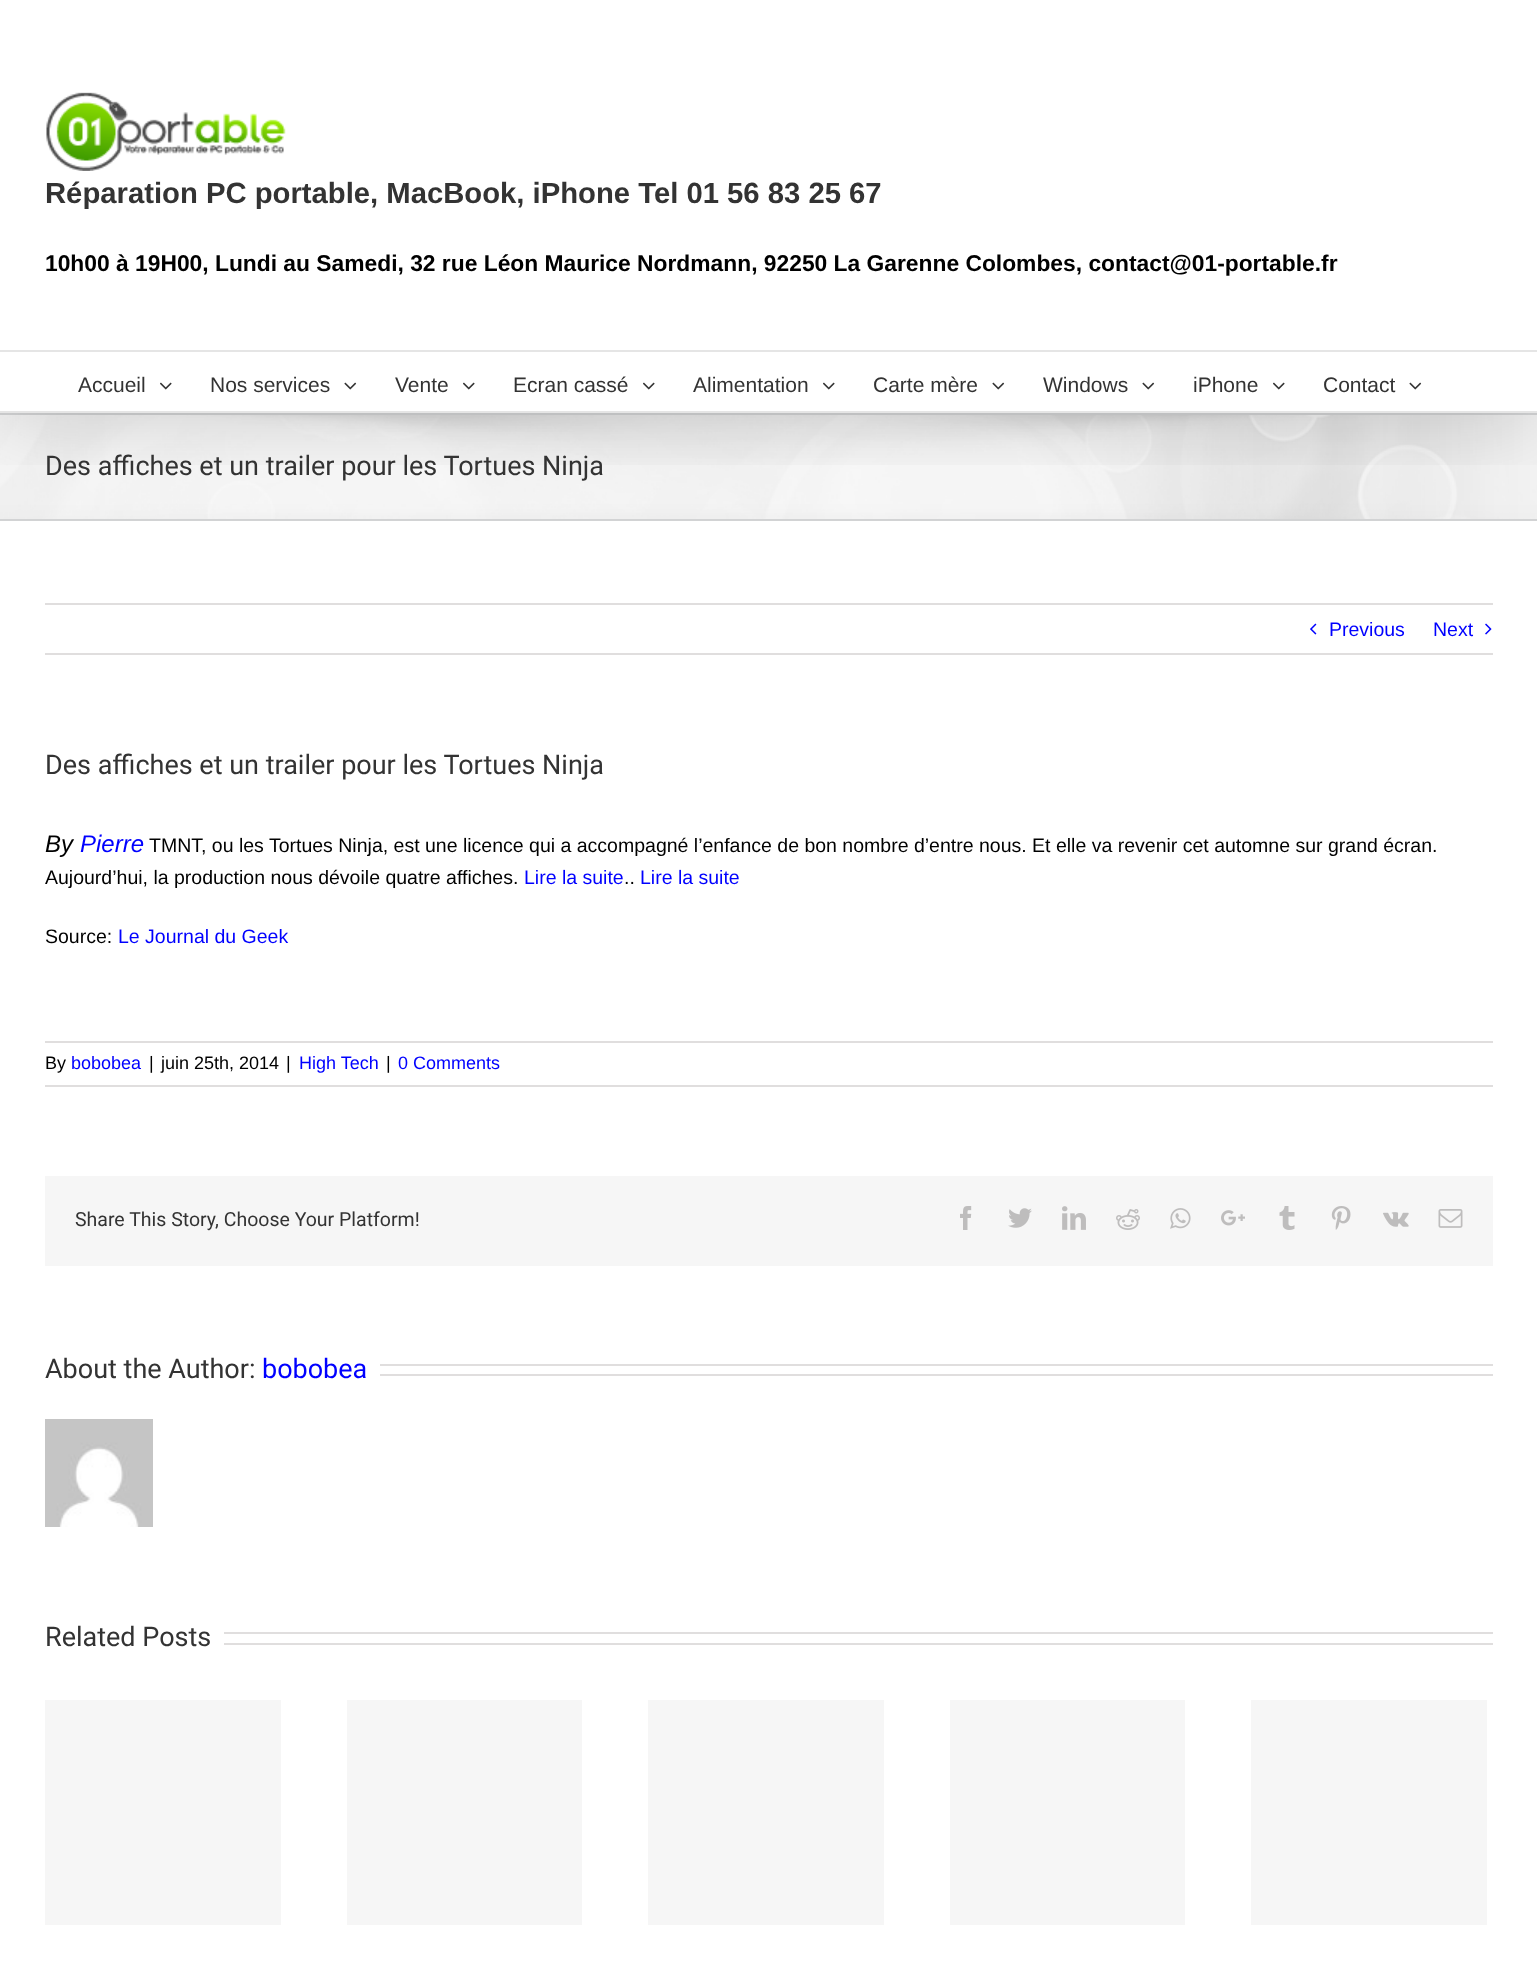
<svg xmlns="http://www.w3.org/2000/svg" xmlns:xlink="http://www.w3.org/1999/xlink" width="1537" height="1968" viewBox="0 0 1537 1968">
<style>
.cls-1{font:bold 29.25px Liberation Sans;fill:#333333}
.cls-2{font:bold 22.82px Liberation Sans;fill:#000000}
.cls-3{font:21px Liberation Sans;fill:#333333}
.cls-4{font:27px Roboto;fill:#333333}
.cls-5{font:19.5px Liberation Sans;fill:#0000ff}
.cls-6{font:italic 24px Liberation Sans;fill:#000000}
.cls-7{font:italic 24px Liberation Sans;fill:#0000ff}
.cls-8{font:19.5px Liberation Sans;fill:#000000}
.cls-9{font:18px Liberation Sans;fill:#000000}
.cls-10{font:18px Liberation Sans;fill:#0000ff}
.cls-11{font:19.5px Roboto;fill:#333333}
.cls-12{font:27px Roboto;fill:#0000ff}
</style>
<defs>
<clipPath id="clip1"><rect x="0" y="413" width="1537" height="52"/></clipPath>
</defs>
<rect width="100%" height="100%" fill="#ffffff"/>
<rect fill="#f6f6f6" x="0" y="415" width="1537" height="104"/>
<image xlink:href="image3.png" x="0" y="415" width="1537" height="104"/>
<rect fill="#d2d3d4" x="0" y="413" width="1537" height="2"/>
<rect fill="#d2d3d4" x="0" y="519" width="1537" height="2"/>
<g clip-path="url(#clip1)">
<rect fill="#000000" fill-opacity="0.14" filter="blur(37.5px)" x="3" y="18" width="1532" height="407"/>
</g>
<rect fill="#e5e5e5" x="0" y="350" width="1537" height="2"/>
<image xlink:href="image0.png" x="46" y="92" width="240" height="79"/>
<rect fill="#e5e5e5" x="0" y="411" width="1537" height="2"/>
<image xlink:href="image1.png" x="160" y="382" width="12" height="8"/>
<image xlink:href="image2.png" x="344" y="382" width="13" height="8"/>
<image xlink:href="image1.png" x="463" y="382" width="12" height="8"/>
<image xlink:href="image1.png" x="643" y="382" width="12" height="8"/>
<image xlink:href="image1.png" x="823" y="382" width="12" height="8"/>
<image xlink:href="image2.png" x="992" y="382" width="13" height="8"/>
<image xlink:href="image2.png" x="1142" y="382" width="13" height="8"/>
<image xlink:href="image1.png" x="1273" y="382" width="12" height="8"/>
<image xlink:href="image2.png" x="1409" y="382" width="13" height="8"/>
<rect fill="#e0dede" x="45" y="603" width="1448" height="2"/>
<rect fill="#e0dede" x="45" y="653" width="1448" height="2"/>
<image xlink:href="image4.png" x="1310" y="623" width="7" height="12"/>
<image xlink:href="image5.png" x="1485" y="623" width="7" height="12"/>
<rect fill="#e0dede" x="45" y="1041" width="1448" height="2"/>
<rect fill="#e0dede" x="45" y="1085" width="1448" height="2"/>
<rect fill="#f6f6f6" x="45" y="1176" width="1448" height="90"/>
<image xlink:href="image6.png" x="960" y="1206" width="12" height="24"/>
<image xlink:href="image7.png" x="1008" y="1208" width="24" height="20"/>
<image xlink:href="image8.png" x="1062" y="1206" width="24" height="24"/>
<image xlink:href="image9.png" x="1116" y="1209" width="24" height="21"/>
<image xlink:href="image10.png" x="1170" y="1208" width="21" height="21"/>
<image xlink:href="image11.png" x="1221" y="1210" width="24" height="16"/>
<image xlink:href="image12.png" x="1279" y="1206" width="16" height="24"/>
<image xlink:href="image13.png" x="1331" y="1206" width="20" height="24"/>
<image xlink:href="image14.png" x="1383" y="1212" width="26" height="15"/>
<image xlink:href="image15.png" x="1438" y="1209" width="25" height="19"/>
<rect fill="#e0dede" x="380" y="1364" width="1113" height="2"/>
<rect fill="#e0dede" x="380" y="1374" width="1113" height="2"/>
<image xlink:href="image16.png" x="45" y="1419" width="108" height="108"/>
<rect fill="#e0dede" x="224" y="1632" width="1269" height="2"/>
<rect fill="#e0dede" x="224" y="1643" width="1269" height="2"/>
<rect fill="#f6f6f6" x="45" y="1700" width="236" height="225"/>
<rect fill="#f6f6f6" x="347" y="1700" width="235" height="225"/>
<rect fill="#f6f6f6" x="648" y="1700" width="236" height="225"/>
<rect fill="#f6f6f6" x="950" y="1700" width="235" height="225"/>
<rect fill="#f6f6f6" x="1251" y="1700" width="236" height="225"/>
<text class="cls-1" x="45" y="203">Réparation PC portable, MacBook, iPhone Tel 01 56 83 25 67</text>
<text class="cls-2" x="45" y="271">10h00 à 19H00, Lundi au Samedi, 32 rue Léon Maurice Nordmann, 92250 La Garenne Colombes, contact@01-portable.fr</text>
<text class="cls-3" x="78" y="392">Accueil</text>
<text class="cls-3" x="210" y="392">Nos services</text>
<text class="cls-3" x="395" y="392">Vente</text>
<text class="cls-3" x="513" y="392">Ecran cassé</text>
<text class="cls-3" x="693" y="392">Alimentation</text>
<text class="cls-3" x="873" y="392">Carte mère</text>
<text class="cls-3" x="1043" y="392">Windows</text>
<text class="cls-3" x="1193" y="392">iPhone</text>
<text class="cls-3" x="1323" y="392">Contact</text>
<text class="cls-4" x="45" y="475">Des affiches et un trailer pour les Tortues Ninja</text>
<text class="cls-5" x="1329" y="636">Previous</text>
<text class="cls-5" x="1433" y="636">Next</text>
<text class="cls-4" x="45" y="774">Des affiches et un trailer pour les Tortues Ninja</text>
<text class="cls-6" x="45" y="852">By</text>
<text class="cls-7" x="80" y="852">Pierre</text>
<text class="cls-8" x="149" y="852">TMNT, ou les Tortues Ninja, est une licence qui a accompagné l’enfance de bon nombre d’entre nous. Et elle va revenir cet automne sur grand écran.</text>
<text class="cls-8" x="45" y="884">Aujourd’hui, la production nous dévoile quatre affiches.</text>
<text class="cls-5" x="524" y="884">Lire la suite</text>
<text class="cls-8" x="624" y="884">..</text>
<text class="cls-5" x="640" y="884">Lire la suite</text>
<text class="cls-8" x="45" y="943">Source:</text>
<text class="cls-5" x="118" y="943">Le Journal du Geek</text>
<text class="cls-9" x="45" y="1069">By</text>
<text class="cls-10" x="71" y="1069">bobobea</text>
<text class="cls-9" x="149" y="1069">|</text>
<text class="cls-9" x="161" y="1069">juin 25th, 2014</text>
<text class="cls-9" x="286" y="1069">|</text>
<text class="cls-10" x="299" y="1069">High Tech</text>
<text class="cls-9" x="386" y="1069">|</text>
<text class="cls-10" x="398" y="1069">0 Comments</text>
<text class="cls-11" x="75" y="1226">Share This Story, Choose Your Platform!</text>
<text class="cls-4" x="45" y="1378">About the Author:</text>
<text class="cls-12" x="262" y="1378">bobobea</text>
<text class="cls-4" x="45" y="1646">Related Posts</text>
</svg>
